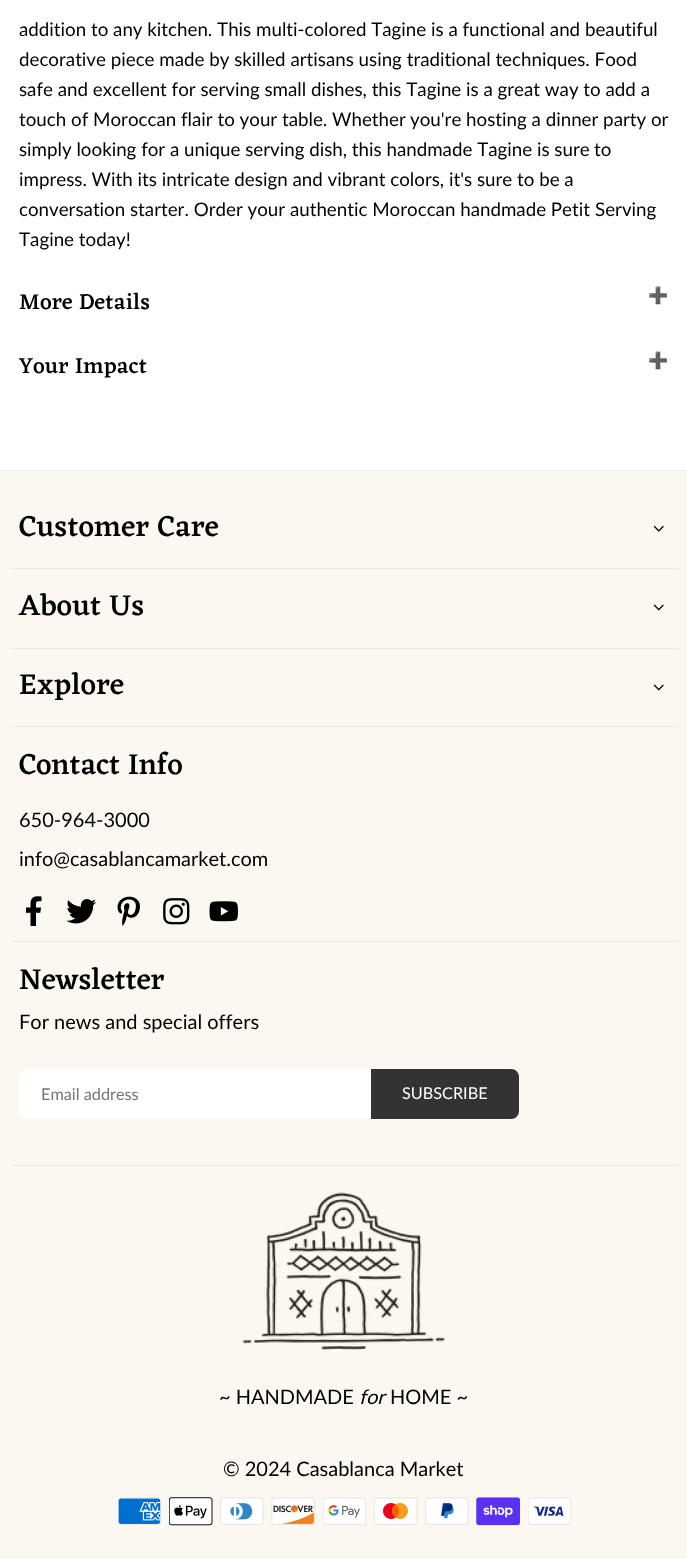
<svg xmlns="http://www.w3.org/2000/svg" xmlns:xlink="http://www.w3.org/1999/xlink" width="687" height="1559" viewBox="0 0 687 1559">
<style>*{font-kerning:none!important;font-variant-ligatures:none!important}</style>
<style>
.cls-1{font:18.75px Lato;fill:#000000}
.cls-2{font:500 22.5px Eczar;letter-spacing:0.25px;fill:#000000}
.cls-3{font:16.25px Noto Color Emoji;letter-spacing:0.25px;fill:#757575}
.cls-4{font:500 30px Eczar;letter-spacing:0.25px;fill:#000000}
.cls-5{font:500 30px Eczar;fill:#000000}
.cls-6{font:20px Lato;fill:#000000}
.cls-7{font:16.25px Lato;fill:#757575}
.cls-8{font:16.25px Lato;fill:#ffffff}
.cls-9{font:italic 20px Lato;fill:#000000}
</style>
<rect width="100%" height="100%" fill="#ffffff"/>
<rect fill="#fbf8f1" x="0" y="471" width="687" height="1088"/>
<rect fill="#eeeeee" x="0" y="470" width="687" height="1"/>
<image xlink:href="image0.png" x="653" y="525" width="11" height="7"/>
<rect fill="#ede9e9" x="10" y="568" width="669" height="1"/>
<image xlink:href="image1.png" x="653" y="604" width="11" height="7"/>
<rect fill="#ede9e9" x="10" y="648" width="669" height="1"/>
<image xlink:href="image1.png" x="653" y="684" width="11" height="7"/>
<rect fill="#ede9e9" x="10" y="726" width="669" height="1"/>
<image xlink:href="image2.png" x="26" y="896" width="16" height="30"/>
<image xlink:href="image3.png" x="66" y="899" width="30" height="25"/>
<image xlink:href="image4.png" x="117" y="896" width="23" height="30"/>
<image xlink:href="image5.png" x="163" y="898" width="27" height="27"/>
<image xlink:href="image6.png" x="209" y="901" width="29" height="21"/>
<rect fill="#ede9e9" x="10" y="941" width="669" height="1"/>
<path fill="#ffffff" d="M27 1069H371V1119H27C22.5 1119 19 1115.5 19 1111V1077C19 1072.5 22.5 1069 27 1069Z"/>
<path fill="#333333" d="M371 1069H511C515.5 1069 519 1072.5 519 1077V1111C519 1115.5 515.5 1119 511 1119H371Z"/>
<rect fill="#ede9e9" x="10" y="1165" width="669" height="1"/>
<image xlink:href="image7.png" x="242" y="1192" width="204" height="159"/>
<image xlink:href="image8.png" x="118" y="1497" width="43" height="28"/>
<image xlink:href="image9.png" x="169" y="1497" width="44" height="29"/>
<image xlink:href="image10.png" x="220" y="1497" width="44" height="28"/>
<image xlink:href="image11.png" x="271" y="1497" width="44" height="28"/>
<image xlink:href="image12.png" x="323" y="1497" width="43" height="28"/>
<image xlink:href="image13.png" x="374" y="1497" width="44" height="28"/>
<image xlink:href="image14.png" x="425" y="1497" width="44" height="28"/>
<image xlink:href="image15.png" x="476" y="1497" width="44" height="29"/>
<image xlink:href="image16.png" x="528" y="1497" width="43" height="28"/>
<text class="cls-1" x="19" y="36">addition to any kitchen. This multi-colored Tagine</text>
<text class="cls-1" x="431" y="36">is a functional and beautiful</text>
<text class="cls-1"><tspan x="19" y="66">decorative piece made by skilled artisans using traditional techniques. Food</tspan><tspan x="19" y="96">safe and excellent for serving small dishes, this Tagine</tspan></text>
<text class="cls-1" x="466" y="96">is a great way to add a</text>
<text class="cls-1" x="19" y="126">touch of Moroccan flair to your table. Whether</text>
<text class="cls-1" x="410" y="126">you're hosting a dinner party or</text>
<text class="cls-1" x="19" y="156">simply looking for a unique serving dish, this handmade Tagine is sure</text>
<text class="cls-1" x="594" y="156">to</text>
<text class="cls-1"><tspan x="19" y="186">impress. With its intricate design and vibrant colors, it's sure to be a</tspan><tspan x="19" y="216">conversation starter. Order your authentic Moroccan handmade Petit</tspan></text>
<text class="cls-1" x="595" y="216">Serving</text>
<text class="cls-1" x="19" y="246">Tagine today!</text>
<text class="cls-2" x="19" y="309">More Details</text>
<text class="cls-3" x="648" y="301">➕</text>
<text class="cls-2" x="19" y="373">Your Impact</text>
<text class="cls-3" x="648" y="366">➕</text>
<text class="cls-4" x="19" y="536">Customer Care</text>
<text class="cls-4" x="19" y="615">About Us</text>
<text class="cls-4" x="19" y="694">Explore</text>
<text class="cls-5" x="19" y="774">Contact Info</text>
<text class="cls-6"><tspan x="19" y="827">650-964-3000</tspan><tspan x="19" y="866">info@casablancamarket.com</tspan></text>
<text class="cls-5" x="19" y="989">Newsletter</text>
<text class="cls-6" x="19" y="1029">For news and special offers</text>
<text class="cls-7" x="41" y="1100">Email address</text>
<text class="cls-8" x="402" y="1099">SUBSCRIBE</text>
<text class="cls-6" x="219" y="1404">~ HANDMADE</text>
<text class="cls-9" x="359" y="1404">for</text>
<text class="cls-6" x="390" y="1404">HOME ~</text>
<text class="cls-6" x="223" y="1476">© 2024 Casablanca Market</text>
</svg>
